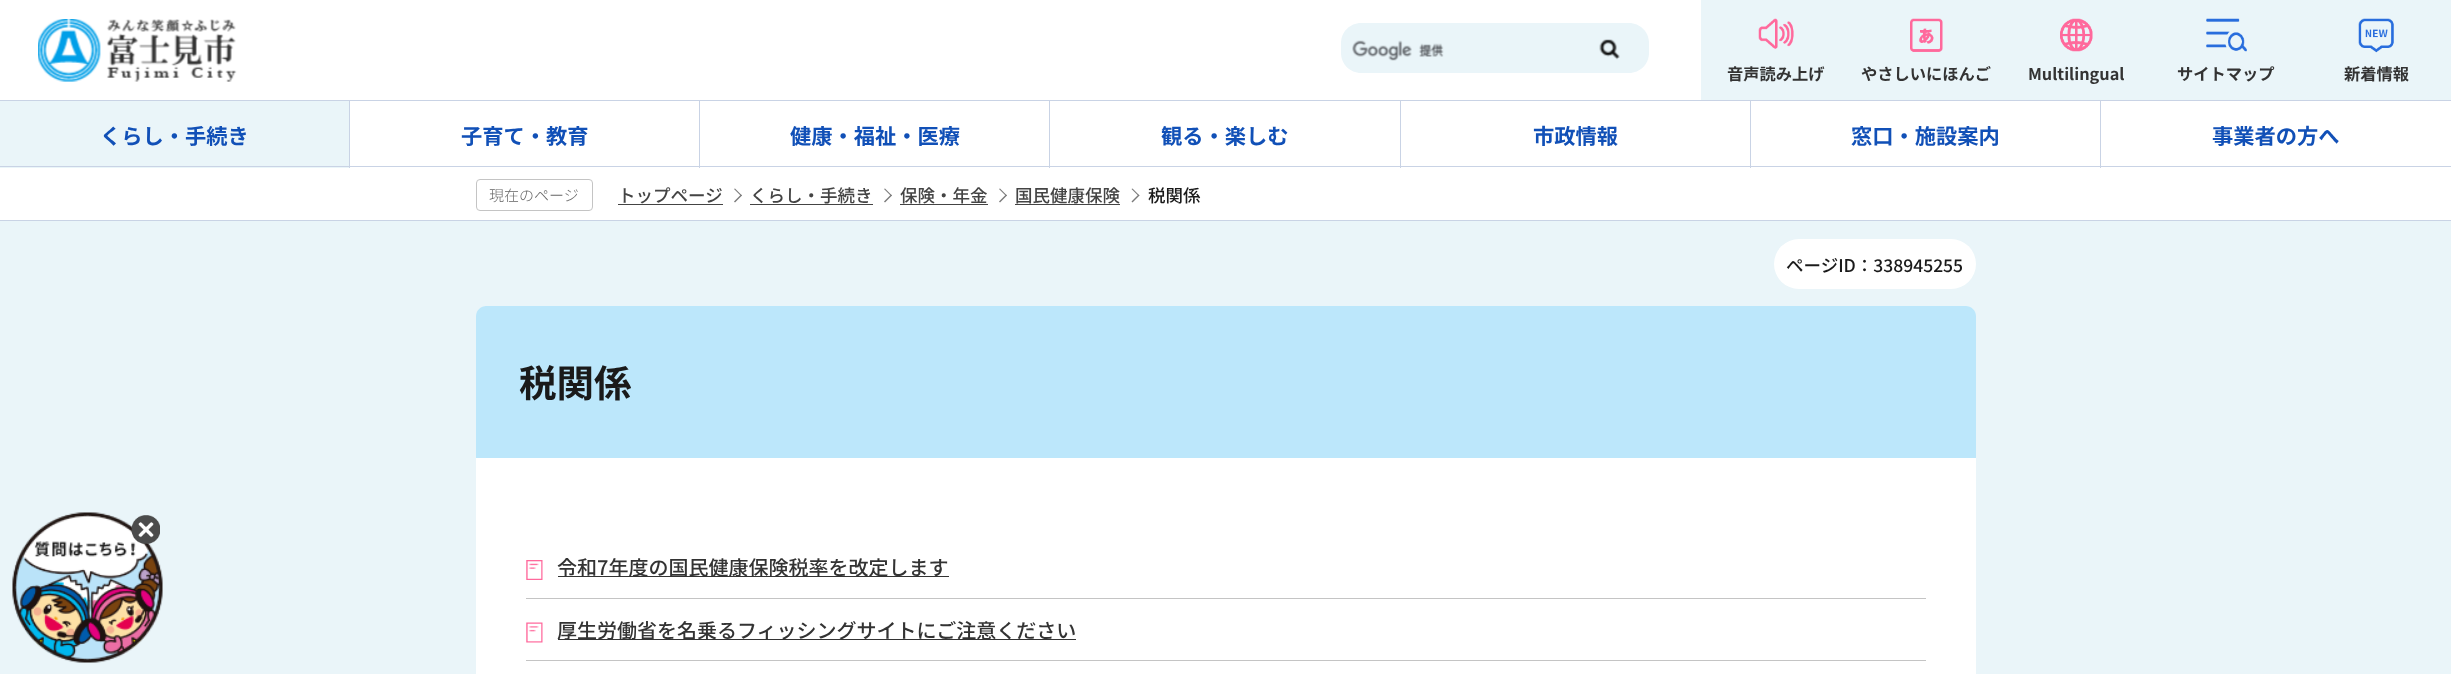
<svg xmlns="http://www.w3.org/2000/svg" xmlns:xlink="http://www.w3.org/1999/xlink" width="2451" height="674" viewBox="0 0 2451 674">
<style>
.cls-1{font:bold 16.25px Noto Sans JP;fill:#333333}
.cls-2{font:bold 21.25px Noto Sans JP;fill:#1150b7}
.cls-3{font:300 15px Noto Sans JP;fill:#666666}
.cls-4{font:500 17.5px Noto Sans JP;fill:#444444}
.cls-5{font:500 17.5px Noto Sans JP;fill:#1a1a1a}
.cls-6{font:bold 37.5px Noto Sans JP;fill:#1a1a1a}
.cls-7{font:500 20px Noto Sans JP;fill:#333333}
</style>
<rect width="100%" height="100%" fill="#eaf5f9"/>
<image xlink:href="image0.png" x="12" y="512" width="151" height="151"/>
<image xlink:href="image1.png" x="131" y="515" width="29" height="29"/>
<rect fill="#ffffff" x="0" y="0" width="2451" height="220"/>
<image xlink:href="image2.png" x="38" y="19" width="199" height="63"/>
<path fill="#eaf5f9" d="M1361 23H1566V73H1361C1350 73 1341 64 1341 53V43C1341 32 1350 23 1361 23Z"/>
<image xlink:href="image3.png" x="1352" y="40" width="92" height="21"/>
<path fill="#eaf5f9" d="M1566 23H1629C1640 23 1649 32 1649 43V53C1649 64 1640 73 1629 73H1566Z"/>
<image xlink:href="image4.png" x="1599" y="39" width="21" height="21"/>
<rect fill="#eaf5f9" x="1701" y="0" width="750" height="100"/>
<image xlink:href="image5.png" x="1758" y="18" width="36" height="31"/>
<image xlink:href="image6.png" x="1910" y="18" width="33" height="34"/>
<image xlink:href="image7.png" x="2060" y="18" width="33" height="34"/>
<image xlink:href="image8.png" x="2206" y="18" width="41" height="34"/>
<image xlink:href="image9.png" x="2358" y="18" width="36" height="35"/>
<rect fill="#c9d3e5" x="0" y="100" width="2451" height="1"/>
<rect fill="#c9d3e5" x="349" y="100" width="1" height="68"/>
<rect fill="#eaf5f9" x="0" y="101" width="349" height="67"/>
<rect fill="#c9d3e5" x="0" y="166" width="349" height="1"/>
<rect fill="#c9d3e5" x="699" y="100" width="1" height="68"/>
<rect fill="#c9d3e5" x="350" y="166" width="349" height="1"/>
<rect fill="#c9d3e5" x="1049" y="100" width="1" height="68"/>
<rect fill="#c9d3e5" x="700" y="166" width="349" height="1"/>
<rect fill="#c9d3e5" x="1400" y="100" width="1" height="68"/>
<rect fill="#c9d3e5" x="1050" y="166" width="350" height="1"/>
<rect fill="#c9d3e5" x="1750" y="100" width="1" height="68"/>
<rect fill="#c9d3e5" x="1401" y="166" width="349" height="1"/>
<rect fill="#c9d3e5" x="2100" y="100" width="1" height="68"/>
<rect fill="#c9d3e5" x="1751" y="166" width="349" height="1"/>
<rect fill="#c9d3e5" x="2101" y="166" width="350" height="1"/>
<rect fill="#c9d3e5" x="0" y="220" width="2451" height="1"/>
<rect fill="none" stroke="#c4c4c4" x="476.5" y="179.5" width="116" height="31" rx="3.5"/>
<rect fill="#444444" x="618" y="204" width="105" height="1"/>
<path fill="#7a7a7a" d="M735 188.5L742 195.5L741 196L734 189Z"/>
<path fill="#7a7a7a" d="M741 194.5L742 195.5L735 202.5L734 201.5Z"/>
<rect fill="#444444" x="750" y="204" width="123" height="1"/>
<path fill="#7a7a7a" d="M885 188.5L892 195.5L891 196L884 189Z"/>
<path fill="#7a7a7a" d="M891 194.5L892 195.5L885 202.5L884 201.5Z"/>
<rect fill="#444444" x="900" y="204" width="88" height="1"/>
<path fill="#7a7a7a" d="M1000 188.5L1007 195.5L1006 196L999 189Z"/>
<path fill="#7a7a7a" d="M1006 194.5L1007 195.5L1000 202.5L999 201.5Z"/>
<rect fill="#444444" x="1015" y="204" width="105" height="1"/>
<path fill="#7a7a7a" d="M1132.5 188.5L1139.5 195.5L1138.5 196L1131.5 189Z"/>
<path fill="#7a7a7a" d="M1138.5 194.5L1139.5 195.5L1132.5 202.5L1131.5 201.5Z"/>
<rect fill="#ffffff" x="1774" y="239" width="202" height="50" rx="25"/>
<rect fill="#ffffff" x="476" y="306" width="1500" height="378" rx="10"/>
<path fill="#bce7fb" d="M486 306H1966C1971.5 306 1976 310.5 1976 316V458H476V316C476 310.5 480.5 306 486 306Z"/>
<rect fill="#c4c4c4" x="526" y="598" width="1400" height="1"/>
<image xlink:href="image10.png" x="526" y="560" width="17" height="20"/>
<rect fill="#333333" x="558" y="576" width="391" height="1"/>
<rect fill="#c4c4c4" x="526" y="660" width="1400" height="1"/>
<image xlink:href="image11.png" x="526" y="622" width="17" height="21"/>
<rect fill="#333333" x="558" y="639" width="518" height="1"/>
<text class="cls-1" x="1727" y="80">音声読み上げ</text>
<text class="cls-1" x="1861" y="80">やさしいにほんご</text>
<text class="cls-1" x="2028" y="80">Multilingual</text>
<text class="cls-1" x="2177" y="80">サイトマップ</text>
<text class="cls-1" x="2344" y="80">新着情報</text>
<text class="cls-2" x="100" y="144">くらし・手続き</text>
<text class="cls-2" x="461" y="144">子育て・教育</text>
<text class="cls-2" x="790" y="144">健康・福祉・医療</text>
<text class="cls-2" x="1161" y="144">観る・楽しむ</text>
<text class="cls-2" x="1533" y="144">市政情報</text>
<text class="cls-2" x="1851" y="144">窓口・施設案内</text>
<text class="cls-2" x="2212" y="144">事業者の方へ</text>
<text class="cls-3" x="489" y="201">現在のページ</text>
<text class="cls-4" x="618" y="202">トップページ</text>
<text class="cls-4" x="750" y="202">くらし・手続き</text>
<text class="cls-4" x="900" y="202">保険・年金</text>
<text class="cls-4" x="1015" y="202">国民健康保険</text>
<text class="cls-5" x="1148" y="202">税関係</text>
<text class="cls-5" x="1786" y="272">ページID：338945255</text>
<text class="cls-6" x="519" y="397">税関係</text>
<text class="cls-7" x="557" y="575">令和7年度の国民健康保険税率を改定します</text>
<text class="cls-7" x="557" y="638">厚生労働省を名乗るフィッシングサイトにご注意ください</text>
</svg>
